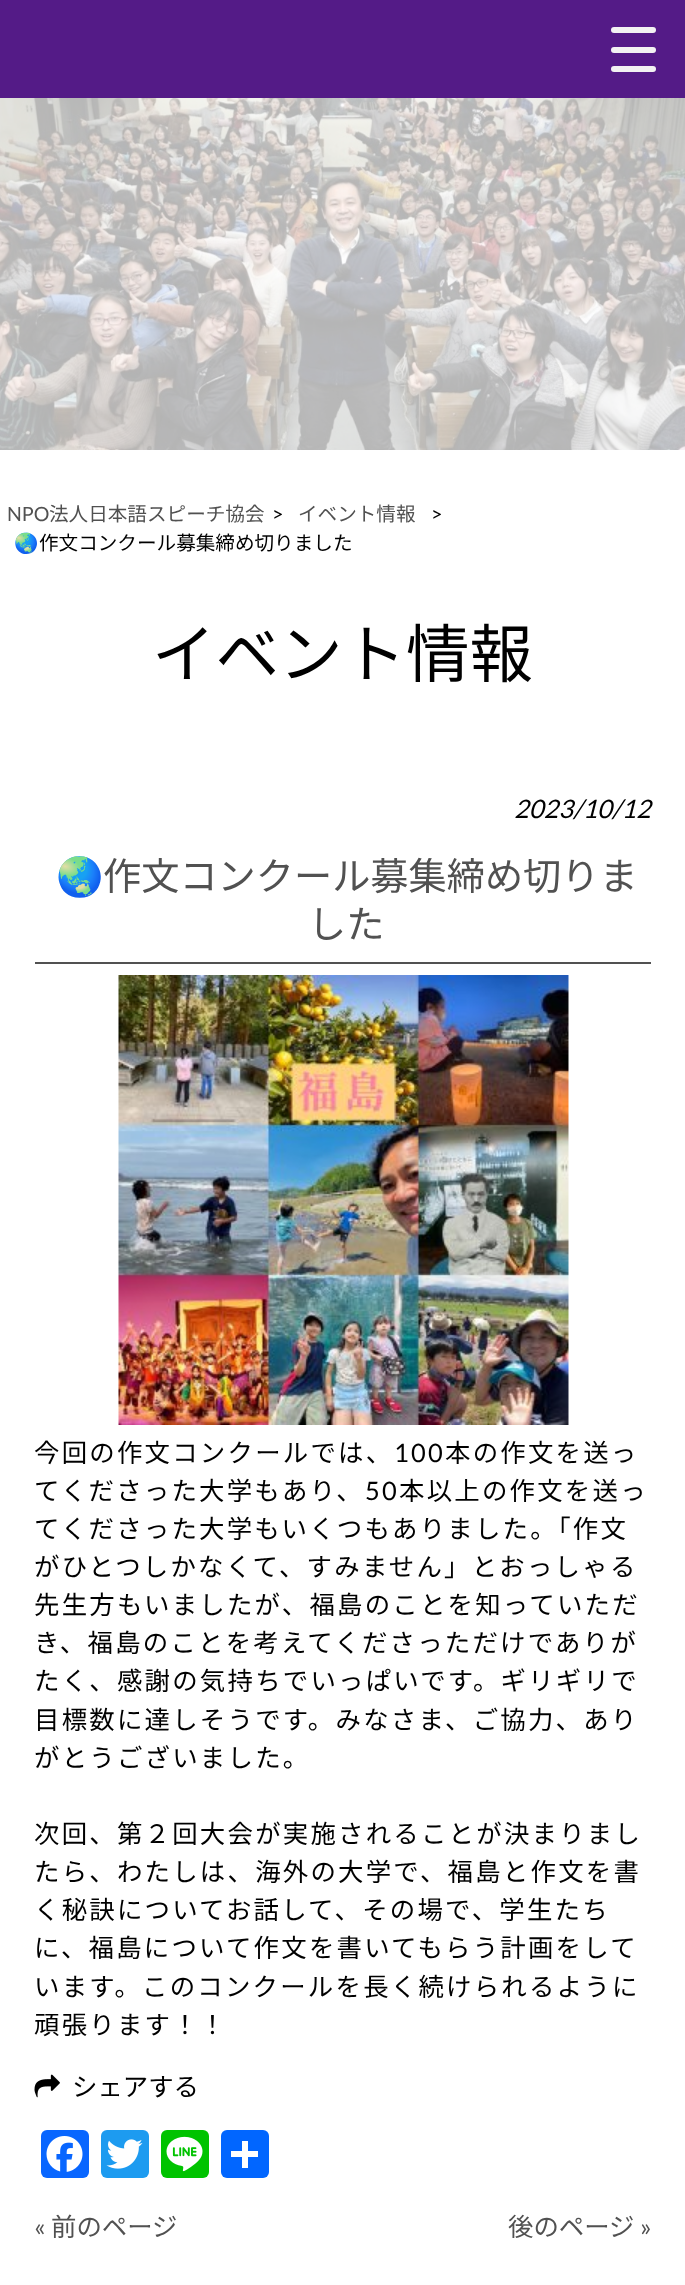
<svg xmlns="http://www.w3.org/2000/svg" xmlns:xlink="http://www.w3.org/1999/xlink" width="685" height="2285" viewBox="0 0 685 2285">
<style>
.cls-1{font:19.6px Lato;fill:#515151}
.cls-2{font:100 19.6px Noto Sans JP;fill:#515151}
.cls-3{font:19.6px Lato;fill:#000000}
.cls-4{font:19.6px Noto Color Emoji;fill:#000000}
.cls-5{font:100 19.6px Noto Sans JP;fill:#000000}
.cls-6{font:100 63.5px Noto Sans JP;fill:#000000}
.cls-7{font:italic 25.4px Lato;fill:#000000}
.cls-8{font:38.2px Noto Color Emoji;fill:#515151}
.cls-9{font:100 38.2px Noto Sans JP;fill:#515151}
.cls-10{font:100 25.4px Noto Sans JP;letter-spacing:2.25px;fill:#000000}
.cls-11{font:25.4px Lato;letter-spacing:2.25px;fill:#000000}
.cls-12{font:100 25.4px Noto Sans JP;fill:#000000}
.cls-13{font:25.4px Lato;fill:#515151}
.cls-14{font:100 25.4px Noto Sans JP;fill:#515151}
</style>
<rect width="100%" height="100%" fill="#ffffff"/>
<image xlink:href="image0.png" x="0" y="98" width="685" height="352"/>
<rect fill="#541b87" x="0" y="0" width="685" height="98"/>
<rect fill="#f2f2f2" x="611" y="27" width="45" height="6" rx="3"/>
<rect fill="#f2f2f2" x="611" y="47" width="45" height="6" rx="3"/>
<rect fill="#f2f2f2" x="611" y="66" width="45" height="6" rx="3"/>
<rect fill="#515151" x="35" y="962" width="616" height="2"/>
<image xlink:href="image1.png" x="118" y="975" width="451" height="450"/>
<image xlink:href="image2.png" x="34" y="2074" width="26" height="24"/>
<rect fill="#0866ff" x="41" y="2130" width="48" height="48" rx="6"/>
<image xlink:href="image3.png" x="46" y="2136" width="37" height="36"/>
<rect fill="#1d9bf0" x="101" y="2130" width="48" height="48" rx="6"/>
<image xlink:href="image4.png" x="106" y="2139" width="37" height="30"/>
<rect fill="#00c300" x="161" y="2130" width="48" height="48" rx="6"/>
<image xlink:href="image5.png" x="166" y="2136" width="37" height="36"/>
<rect fill="#0166ff" x="221" y="2130" width="48" height="48" rx="6"/>
<rect fill="#ffffff" x="242" y="2141" width="6" height="27"/>
<rect fill="#ffffff" x="231" y="2151" width="27" height="6"/>
<text class="cls-1" x="7" y="521">NPO</text>
<text class="cls-2" x="49" y="521">法人日本語スピーチ協会</text>
<text class="cls-3" x="272" y="521">&gt;</text>
<text class="cls-2" x="298" y="521">イベント情報</text>
<text class="cls-3" x="431" y="521">&gt;</text>
<text class="cls-4" x="14" y="550">🌏</text>
<text class="cls-5" x="39" y="550">作文コンクール募集締め切りました</text>
<text class="cls-6" x="152" y="677">イベント情報</text>
<text class="cls-7" x="514" y="818">2023/10/12</text>
<text class="cls-8" x="56" y="890">🌏</text>
<text class="cls-9" x="103" y="890">作文コンクール募集締め切りま</text>
<text class="cls-9" x="308" y="938">した</text>
<text class="cls-10" x="34" y="1462">今回の作文コンクールでは、</text>
<text class="cls-11" x="394" y="1462">100</text>
<text class="cls-10" x="445" y="1462">本の作文を送っ</text>
<text class="cls-10" x="34" y="1500">てくださった大学もあり、</text>
<text class="cls-11" x="365" y="1500">50</text>
<text class="cls-10" x="399" y="1500">本以上の作文を送っ</text>
<text class="cls-10"><tspan x="34" y="1538">てくださった大学もいくつもありました。「作文</tspan><tspan x="34" y="1576">がひとつしかなくて、すみません」とおっしゃる</tspan><tspan x="34" y="1614">先生方もいましたが、福島のことを知っていただ</tspan><tspan x="34" y="1652">き、福島のことを考えてくださっただけでありが</tspan><tspan x="34" y="1690">たく、感謝の気持ちでいっぱいです。ギリギリで</tspan><tspan x="34" y="1729">目標数に達しそうです。みなさま、ご協力、あり</tspan><tspan x="34" y="1767">がとうございました。</tspan></text>
<text class="cls-10"><tspan x="34" y="1843">次回、第２回大会が実施されることが決まりまし</tspan><tspan x="34" y="1881">たら、わたしは、海外の大学で、福島と作文を書</tspan><tspan x="34" y="1919">く秘訣についてお話して、その場で、学生たち</tspan><tspan x="34" y="1957">に、福島について作文を書いてもらう計画をして</tspan><tspan x="34" y="1996">います。このコンクールを長く続けられるように</tspan><tspan x="34" y="2034">頑張ります！！</tspan></text>
<text class="cls-12" x="72" y="2096">シェアする</text>
<text class="cls-13" x="34" y="2236">«</text>
<text class="cls-14" x="51" y="2236">前のページ</text>
<text class="cls-14" x="508" y="2236">後のページ</text>
<text class="cls-13" x="640" y="2236">»</text>
</svg>
